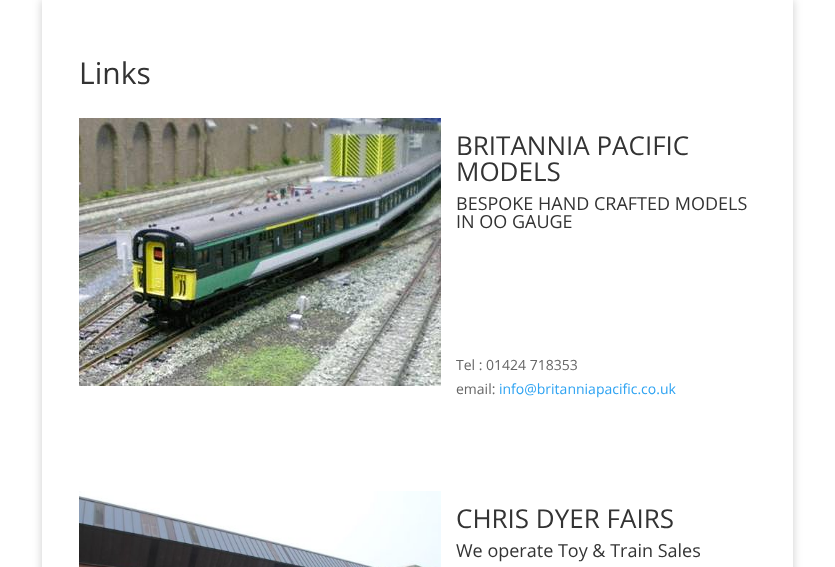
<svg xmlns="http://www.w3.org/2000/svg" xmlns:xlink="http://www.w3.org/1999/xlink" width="835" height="567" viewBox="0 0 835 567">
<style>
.cls-1{font:30px Open Sans;fill:#333333}
.cls-2{font:26px Open Sans;fill:#333333}
.cls-3{font:18px Open Sans;fill:#333333}
.cls-4{font:14px Open Sans;fill:#666666}
.cls-5{font:14px Open Sans;fill:#2ea3f2}
</style>
<defs>
<clipPath id="clip1"><path d="M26 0H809V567H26ZM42 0H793V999H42Z" clip-rule="evenodd"/></clipPath>
</defs>
<rect width="100%" height="100%" fill="#ffffff"/>
<g clip-path="url(#clip1)">
<rect fill="#000000" fill-opacity="0.2" filter="blur(5px)" x="42" y="0" width="751" height="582"/>
</g>
<image xlink:href="image0.png" x="79" y="118" width="362" height="268"/>
<image xlink:href="image1.png" x="79" y="491" width="362" height="76"/>
<text class="cls-1" x="79" y="84">Links</text>
<text class="cls-2"><tspan x="456" y="155">BRITANNIA PACIFIC</tspan><tspan x="456" y="181">MODELS</tspan></text>
<text class="cls-3"><tspan x="456" y="210">BESPOKE HAND CRAFTED MODELS</tspan><tspan x="456" y="228">IN OO GAUGE</tspan></text>
<text class="cls-4"><tspan x="456" y="370">Tel : 01424 718353</tspan><tspan x="456" y="394">email:</tspan></text>
<text class="cls-5" x="499" y="394">info@britanniapacific.co.uk</text>
<text class="cls-2" x="456" y="528">CHRIS DYER FAIRS</text>
<text class="cls-3" x="456" y="557">We operate Toy &amp; Train Sales</text>
</svg>
